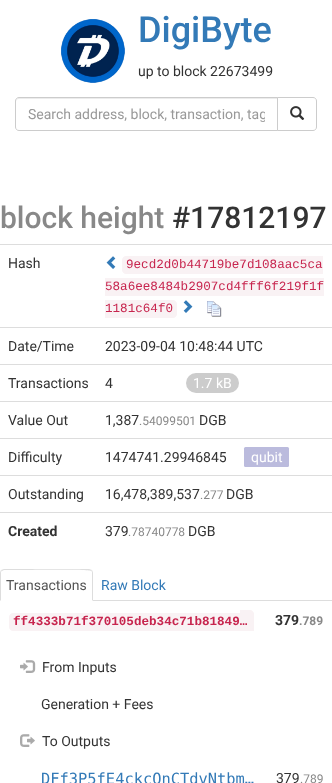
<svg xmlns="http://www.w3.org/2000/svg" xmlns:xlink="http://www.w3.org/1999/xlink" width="332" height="783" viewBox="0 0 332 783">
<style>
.cls-1{font:500 36px Roboto;fill:#337ab7}
.cls-2{font:14px Roboto;fill:#333333}
.cls-3{font:14px Roboto;fill:#999999}
.cls-4{font:500 30px Roboto;fill:#888888}
.cls-5{font:500 30px Roboto;fill:#333333}
.cls-6{font:12.6px Liberation Mono;fill:#c7254e}
.cls-7{font:14px Roboto;fill:#ffffff}
.cls-8{font:12px Roboto;fill:#888888}
.cls-9{font:bold 14px Roboto;fill:#333333}
.cls-10{font:14px Roboto;fill:#555555}
.cls-11{font:14px Roboto;fill:#337ab7}
.cls-12{font:bold 12.6px Liberation Mono;fill:#c7254e}
.cls-13{font:bold 12px Roboto;fill:#888888}
.cls-14{font:15.4px DejaVu Sans Mono;fill:#337ab7}
</style>
<defs>
<clipPath id="clip1"><rect x="28" y="106" width="237" height="16"/></clipPath>
</defs>
<rect width="100%" height="100%" fill="#ffffff"/>
<image xlink:href="image0.png" x="61" y="19" width="64" height="64"/>
<path fill="#ececec" d="M19 99H277V98H19C17 98 16 99 16 101V102C16 100 17 99 19 99Z"/>
<path fill="none" stroke="#cccccc" d="M19 97.5H277.5V130.5H19C17 130.5 15.5 129 15.5 127V101C15.5 99 17 97.5 19 97.5Z"/>
<path fill="#ffffff" stroke="#cccccc" d="M277.5 97.5H313C315 97.5 316.5 99 316.5 101V127C316.5 129 315 130.5 313 130.5H277.5Z"/>
<image xlink:href="image1.png" x="290" y="106" width="15" height="14"/>
<rect fill="#dddddd" x="0" y="244" width="332" height="1"/>
<image xlink:href="image2.png" x="106" y="256" width="10" height="13"/>
<path fill="#f9f2f4" d="M126 256H323V274H126C124 274 122 272 122 270V260C122 258 124 256 126 256Z"/>
<rect fill="#f9f2f4" x="105" y="278" width="219" height="18"/>
<path fill="#f9f2f4" d="M105 300H173C175 300 177 302 177 304V314C177 316 175 318 173 318H105Z"/>
<image xlink:href="image3.png" x="183" y="300" width="10" height="13"/>
<image xlink:href="image4.png" x="207" y="301" width="15" height="16"/>
<rect fill="#dddddd" x="0" y="327" width="332" height="1"/>
<rect fill="#dddddd" x="0" y="364" width="332" height="1"/>
<rect fill="#cccccc" x="186" y="373" width="53" height="20" rx="10"/>
<rect fill="#dddddd" x="0" y="401" width="332" height="1"/>
<rect fill="#dddddd" x="0" y="438" width="332" height="1"/>
<rect fill="#bbbbdd" x="244" y="447" width="45" height="20" rx="1.5"/>
<rect fill="#dddddd" x="0" y="475" width="332" height="1"/>
<rect fill="#dddddd" x="0" y="512" width="332" height="1"/>
<rect fill="#dddddd" x="93" y="600" width="239" height="1"/>
<path fill="#dddddd" d="M4 569L1 570L2 571L4 570H18C26 570 89 569 91 571L92 570L89 569Z"/>
<path fill="#dddddd" d="M93 601V573C93 572 92.5 571 92 570L91 571C92 571 92 572 92 573V600Z"/>
<path fill="#dddddd" d="M0 601L1 600V573C1 572 1 571 2 571L1 570C.5 571 0 572 0 573Z"/>
<path fill="#f9f2f4" d="M13 613H254V631H13C11 631 9 629 9 627V617C9 615 11 613 13 613Z"/>
<path fill="#f9f2f4" d="M240 610H250C252 610 254 612 254 614V626C254 628 252 630 250 630H240Z"/>
<image xlink:href="image5.png" x="20" y="660" width="16" height="13"/>
<image xlink:href="image6.png" x="20" y="734" width="15" height="13"/>
<text class="cls-1" x="138" y="42">DigiByte</text>
<text class="cls-2" x="138" y="76">up to block 22673499</text>
<g clip-path="url(#clip1)">
<text class="cls-3" x="28" y="119">Search address, block, transaction, tag</text>
</g>
<text class="cls-4" x="0" y="228">block height</text>
<text class="cls-5" x="172" y="228">#17812197</text>
<text class="cls-2" x="8" y="268">Hash</text>
<text class="cls-6" x="126" y="268">9ecd2d0b44719be7d108aac5ca</text>
<text class="cls-6"><tspan x="105" y="290">58a6ee8484b2907cd4fff6f219f1f</tspan><tspan x="105" y="312">1181c64f0</tspan></text>
<text class="cls-2" x="8" y="351">Date/Time</text>
<text class="cls-2" x="105" y="351">2023-09-04 10:48:44 UTC</text>
<text class="cls-2" x="8" y="388">Transactions</text>
<text class="cls-2" x="105" y="388">4</text>
<text class="cls-7" x="193" y="388">1.7 kB</text>
<text class="cls-2" x="8" y="425">Value Out</text>
<text class="cls-2" x="105" y="425">1,387</text>
<text class="cls-8" x="139" y="425">.54099501</text>
<text class="cls-2" x="199" y="425">DGB</text>
<text class="cls-2" x="8" y="462">Difficulty</text>
<text class="cls-2" x="105" y="462">1474741.29946845</text>
<text class="cls-7" x="251" y="462">qubit</text>
<text class="cls-2" x="8" y="499">Outstanding</text>
<text class="cls-2" x="105" y="499">16,478,389,537</text>
<text class="cls-8" x="200" y="499">.277</text>
<text class="cls-2" x="226" y="499">DGB</text>
<text class="cls-9" x="8" y="536">Created</text>
<text class="cls-2" x="105" y="536">379</text>
<text class="cls-8" x="128" y="536">.78740778</text>
<text class="cls-2" x="188" y="536">DGB</text>
<text class="cls-10" x="6" y="590">Transactions</text>
<text class="cls-11" x="101" y="590">Raw Block</text>
<text class="cls-12" x="13" y="625">ff4333b71f370105deb34c71b81849…</text>
<text class="cls-9" x="275" y="625">379</text>
<text class="cls-13" x="299" y="625">.789</text>
<text class="cls-2" x="42" y="672">From Inputs</text>
<text class="cls-2" x="41" y="709">Generation + Fees</text>
<text class="cls-2" x="42" y="746">To Outputs</text>
<text class="cls-14" x="41" y="784">DFf3P5fE4ckcQnCTdvNtbm…</text>
<text class="cls-2" x="276" y="783">379</text>
<text class="cls-8" x="300" y="783">.789</text>
</svg>
